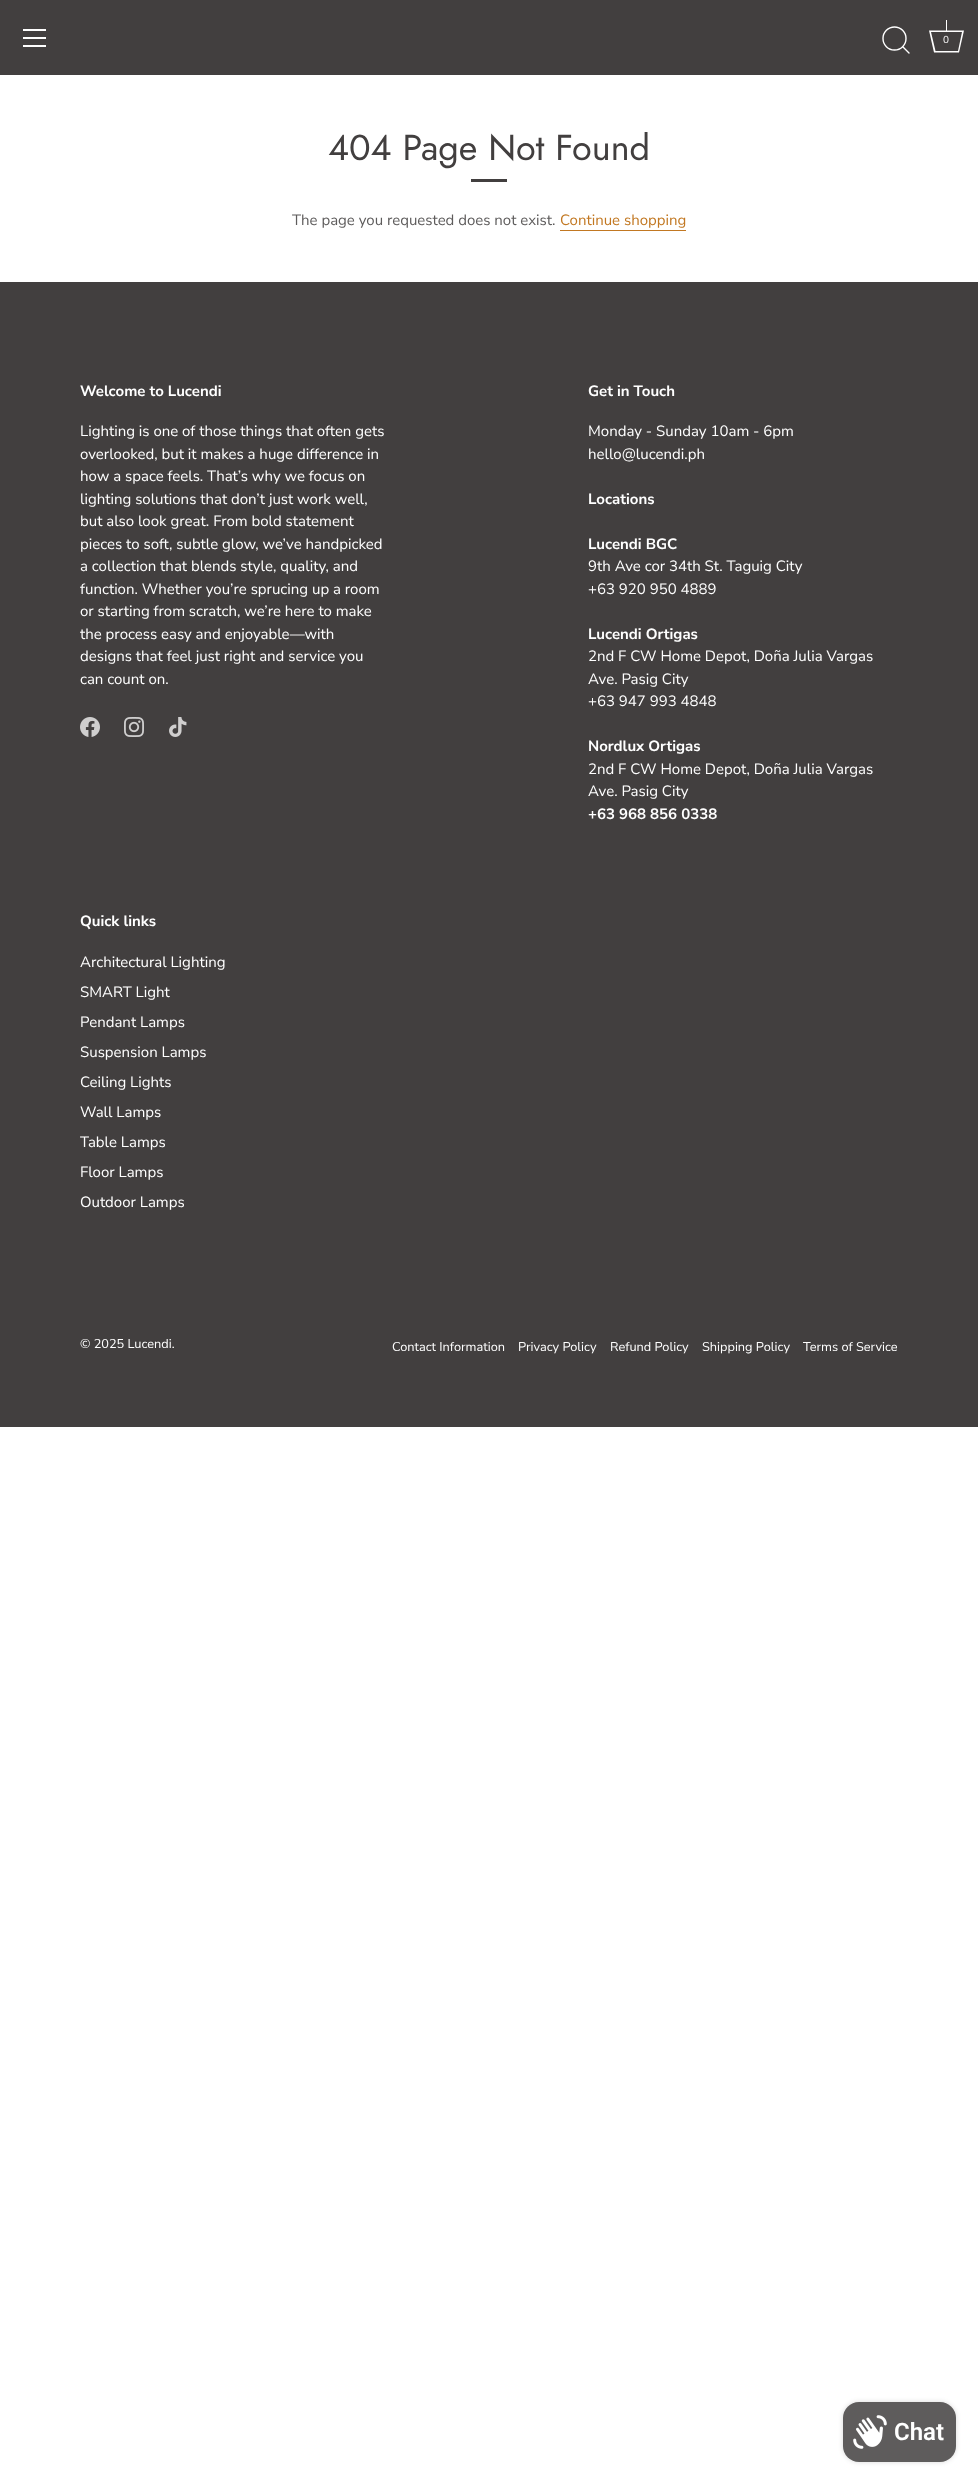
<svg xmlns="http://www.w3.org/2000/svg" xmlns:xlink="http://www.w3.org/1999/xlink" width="978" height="2483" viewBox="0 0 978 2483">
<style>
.cls-1{font:10px Nunito Sans;fill:#ffffff}
.cls-2{font:36px Jost;fill:#423f3f}
.cls-3{font:15px Nunito Sans;fill:#5e5c5c}
.cls-4{font:15px Nunito Sans;fill:#c27822}
.cls-5{font:bold 15px Nunito Sans;fill:#ffffff}
.cls-6{font:15px Nunito Sans;fill:#ffffff}
.cls-7{font:12.75px Nunito Sans;fill:#ffffff}
.cls-8{font:600 24px Roboto;fill:#ffffff}
</style>
<rect width="100%" height="100%" fill="#ffffff"/>
<rect fill="#423f3f" x="0" y="0" width="978" height="75"/>
<rect fill="#ffffff" x="23" y="29" width="23" height="2"/>
<rect fill="#ffffff" x="23" y="37" width="23" height="2"/>
<rect fill="#ffffff" x="23" y="45" width="23" height="2"/>
<circle fill="none" stroke="#ffffff" stroke-width="1.4" cx="894.5" cy="38.5" r="11.5"/>
<path fill="none" stroke="#ffffff" stroke-width="1.4" stroke-linecap="round" stroke-linejoin="round" d="M909 53L903 47"/>
<path fill="#ffffff" d="M962 32L958 51H935.5L931 32H962M964 30.5H929L934 52.5H959Z"/>
<rect fill="#ffffff" x="946" y="20" width="1" height="11"/>
<rect fill="#423f3f" x="471" y="179" width="36" height="3"/>
<rect fill="#c27822" x="560" y="230" width="126" height="1"/>
<rect fill="#423f3f" x="0" y="282" width="978" height="1145"/>
<image xlink:href="image0.png" x="80" y="717" width="20" height="20"/>
<image xlink:href="image1.png" x="124" y="717" width="20" height="20"/>
<image xlink:href="image2.png" x="169" y="717" width="18" height="20"/>
<rect fill="#000000" fill-opacity="0.15" filter="blur(2.5px)" x="843" y="2402" width="113" height="60" rx="16"/>
<rect fill="#5e5c5c" x="843" y="2402" width="113" height="60" rx="16"/>
<image xlink:href="image3.png" x="853" y="2415" width="34" height="34"/>
<text class="cls-1" x="943" y="43">0</text>
<text class="cls-2" x="328" y="160">404 Page Not Found</text>
<text class="cls-3" x="292" y="225">The page you requested does not exist.</text>
<text class="cls-4" x="560" y="225">Continue shopping</text>
<text class="cls-5" x="80" y="396">Welcome to Lucendi</text>
<text class="cls-6"><tspan x="80" y="436">Lighting is one of those things that often gets</tspan><tspan x="80" y="459">overlooked, but it makes a huge difference in</tspan><tspan x="80" y="481">how a space feels. That’s why we focus on</tspan><tspan x="80" y="504">lighting solutions that don’t just work well,</tspan><tspan x="80" y="526">but also look great. From bold statement</tspan><tspan x="80" y="549">pieces to soft, subtle glow, we’ve handpicked</tspan><tspan x="80" y="571">a collection that blends style, quality, and</tspan><tspan x="80" y="594">function. Whether you’re sprucing up a room</tspan><tspan x="80" y="616">or starting from scratch, we’re here to make</tspan><tspan x="80" y="639">the process easy and enjoyable—with</tspan><tspan x="80" y="661">designs that feel just right and service you</tspan><tspan x="80" y="684">can count on.</tspan></text>
<text class="cls-5" x="588" y="396">Get in Touch</text>
<text class="cls-6"><tspan x="588" y="436">Monday - Sunday 10am - 6pm</tspan><tspan x="588" y="459">hello@lucendi.ph</tspan></text>
<text class="cls-5" x="588" y="504">Locations</text>
<text class="cls-5" x="588" y="549">Lucendi BGC</text>
<text class="cls-6"><tspan x="588" y="571">9th Ave cor 34th St. Taguig City</tspan><tspan x="588" y="594">+63 920 950 4889</tspan></text>
<text class="cls-5" x="588" y="639">Lucendi Ortigas</text>
<text class="cls-6"><tspan x="588" y="661">2nd F CW Home Depot, Doña Julia Vargas</tspan><tspan x="588" y="684">Ave. Pasig City</tspan><tspan x="588" y="706">+63 947 993 4848</tspan></text>
<text class="cls-5" x="588" y="751">Nordlux Ortigas</text>
<text class="cls-6"><tspan x="588" y="774">2nd F CW Home Depot, Doña Julia Vargas</tspan><tspan x="588" y="796">Ave. Pasig City</tspan></text>
<text class="cls-5" x="588" y="819">+63 968 856 0338</text>
<text class="cls-5" x="80" y="926">Quick links</text>
<text class="cls-6" x="80" y="967">Architectural Lighting</text>
<text class="cls-6" x="80" y="997">SMART Light</text>
<text class="cls-6" x="80" y="1027">Pendant Lamps</text>
<text class="cls-6" x="80" y="1057">Suspension Lamps</text>
<text class="cls-6" x="80" y="1087">Ceiling Lights</text>
<text class="cls-6" x="80" y="1117">Wall Lamps</text>
<text class="cls-6" x="80" y="1147">Table Lamps</text>
<text class="cls-6" x="80" y="1177">Floor Lamps</text>
<text class="cls-6" x="80" y="1207">Outdoor Lamps</text>
<text class="cls-7" x="80" y="1348">© 2025 Lucendi.</text>
<text class="cls-7" x="392" y="1351">Contact Information</text>
<text class="cls-7" x="518" y="1351">Privacy Policy</text>
<text class="cls-7" x="610" y="1351">Refund Policy</text>
<text class="cls-7" x="702" y="1351">Shipping Policy</text>
<text class="cls-7" x="803" y="1351">Terms of Service</text>
<text class="cls-8" x="894" y="2440">Chat</text>
</svg>
